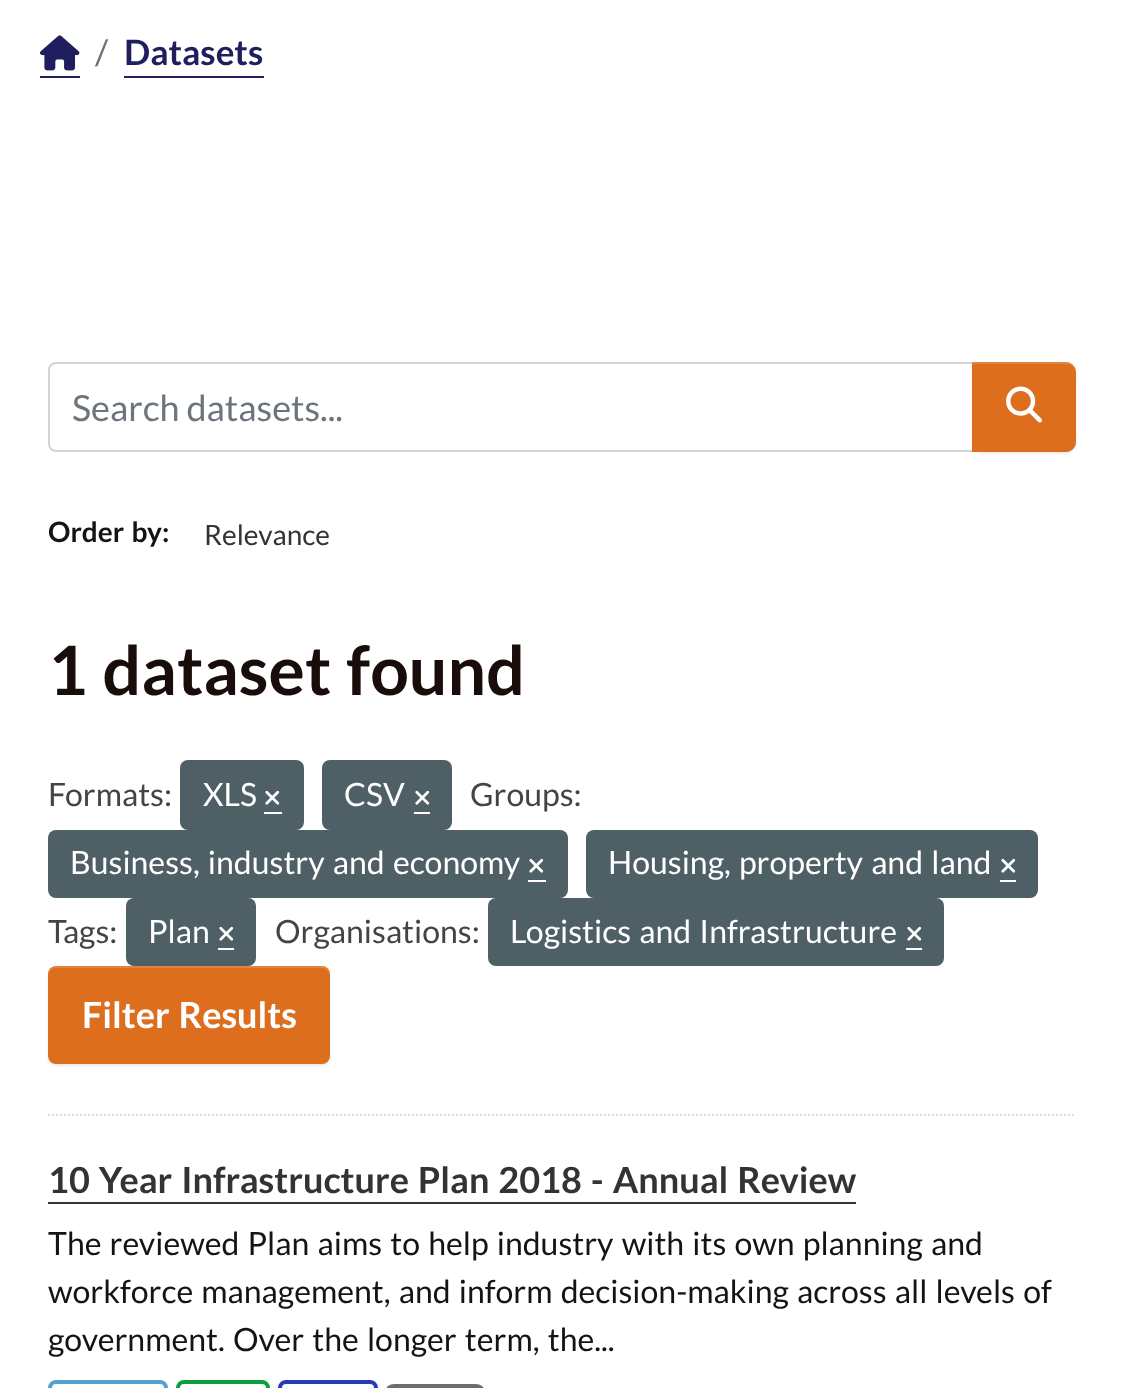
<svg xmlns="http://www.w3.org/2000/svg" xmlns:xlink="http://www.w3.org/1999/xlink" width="1124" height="1388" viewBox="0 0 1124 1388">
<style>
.cls-1{font:35px Lato;fill:#6c757d}
.cls-2{font:bold 35px Lato;fill:#1f1f5f}
.cls-3{font:36px Lato;fill:#6c757d}
.cls-4{font:bold 28px Lato;fill:#141414}
.cls-5{font:28px Lato;fill:#333333}
.cls-6{font:bold 68px Lato;fill:#180d0a}
.cls-7{font:32px Lato;fill:#444444}
.cls-8{font:32px Lato;fill:#ffffff}
.cls-9{font:bold 36px Lato;fill:#ffffff}
.cls-10{font:bold 36px Lato;fill:#333333}
.cls-11{font:32px Lato;fill:#141414}
</style>
<rect width="100%" height="100%" fill="#ffffff"/>
<rect fill="#1f1f5f" x="40" y="76" width="40" height="2"/>
<image xlink:href="image0.png" x="40" y="35" width="40" height="36"/>
<rect fill="#1f1f5f" x="124" y="76" width="140" height="2"/>
<path fill="none" stroke="#dddddd" stroke-width="2" stroke-dasharray="2 2" d="M48 1115H1076"/>
<path fill="none" stroke="#ced4da" stroke-width="2" d="M56 363H973V451H56C52 451 49 448 49 444V370C49 366 52 363 56 363Z"/>
<rect fill="#000000" fill-opacity="0.07" filter="blur(1px)" x="972" y="364" width="104" height="90" rx="10"/>
<path fill="#dd6e1d" d="M972 362H1066C1071.5 362 1076 366.5 1076 372V442C1076 447.5 1071.5 452 1066 452H972Z"/>
<path fill="#ffffff" fill-opacity="0.15" d="M972 364H1066C1072 364 1076 368 1076 374V372C1076 366 1072 362 1066 362H972Z"/>
<image xlink:href="image1.png" x="1006" y="386" width="36" height="37"/>
<rect fill="#4e5f65" x="180" y="760" width="124" height="70" rx="8"/>
<rect fill="#ffffff" x="264" y="812" width="18" height="2"/>
<image xlink:href="image2.png" x="265" y="790" width="15" height="15"/>
<rect fill="#4e5f65" x="322" y="760" width="130" height="70" rx="8"/>
<rect fill="#ffffff" x="414" y="812" width="16" height="2"/>
<image xlink:href="image2.png" x="415" y="790" width="15" height="15"/>
<rect fill="#4e5f65" x="48" y="830" width="520" height="68" rx="8"/>
<rect fill="#ffffff" x="528" y="880" width="18" height="2"/>
<image xlink:href="image2.png" x="529" y="858" width="15" height="15"/>
<rect fill="#4e5f65" x="586" y="830" width="452" height="68" rx="8"/>
<rect fill="#ffffff" x="1000" y="880" width="16" height="2"/>
<image xlink:href="image2.png" x="1001" y="858" width="15" height="15"/>
<rect fill="#4e5f65" x="126" y="898" width="130" height="68" rx="8"/>
<rect fill="#ffffff" x="218" y="948" width="16" height="2"/>
<image xlink:href="image2.png" x="219" y="926" width="15" height="15"/>
<rect fill="#4e5f65" x="488" y="898" width="456" height="68" rx="8"/>
<rect fill="#ffffff" x="906" y="948" width="16" height="2"/>
<image xlink:href="image2.png" x="907" y="926" width="15" height="15"/>
<rect fill="#000000" fill-opacity="0.07" filter="blur(1px)" x="48" y="968" width="282" height="98" rx="8"/>
<rect fill="#dd6e1d" x="48" y="966" width="282" height="98" rx="8"/>
<path fill="#ffffff" fill-opacity="0.15" d="M56 968H322C326 968 330 972 330 976V974C330 970 326 966 322 966H56C52 966 48 970 48 974V976C48 972 52 968 56 968Z"/>
<rect fill="#333333" x="48" y="1202" width="808" height="2"/>
<rect fill="none" stroke="#55a1ce" stroke-width="4" x="50" y="1382" width="116" height="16" rx="6"/>
<rect fill="none" stroke="#0a9e3e" stroke-width="4" x="178" y="1382" width="90" height="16" rx="6"/>
<rect fill="none" stroke="#243db7" stroke-width="4" x="280" y="1382" width="96" height="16" rx="6"/>
<rect fill="#6e6e6e" x="386" y="1384" width="98" height="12" rx="8"/>
<text class="cls-1" x="95" y="65">/</text>
<text class="cls-2" x="124" y="65">Datasets</text>
<text class="cls-3" x="72" y="421">Search datasets...</text>
<text class="cls-4" x="48" y="542" word-spacing="2">Order by</text>
<text class="cls-4" x="162" y="542">:</text>
<text class="cls-5" x="204" y="545">Relevance</text>
<text class="cls-6" x="48" y="695" word-spacing="2">1 dataset found</text>
<text class="cls-7" x="48" y="806">Formats:</text>
<text class="cls-8" x="203" y="806">XLS</text>
<text class="cls-8" x="344" y="806">CSV</text>
<text class="cls-7" x="470" y="806">Groups:</text>
<text class="cls-8" x="70" y="874" word-spacing="2">Business, industry and economy</text>
<text class="cls-8" x="608" y="874" word-spacing="2">Housing, property and land</text>
<text class="cls-7" x="48" y="943">Tags:</text>
<text class="cls-8" x="148" y="943">Plan</text>
<text class="cls-7" x="275" y="943">Organisations:</text>
<text class="cls-8" x="510" y="943" word-spacing="2">Logistics and Infrastructure</text>
<text class="cls-9" x="82" y="1028" word-spacing="2">Filter Results</text>
<text class="cls-10" x="48" y="1193" word-spacing="2">10 Year Infrastructure Plan 2018 - Annual Review</text>
<text class="cls-11"><tspan x="48" y="1255" word-spacing="2">The reviewed Plan aims to help industry with its own planning and</tspan><tspan x="48" y="1303" word-spacing="2">workforce management, and inform decision-making across all levels of</tspan><tspan x="48" y="1351" word-spacing="2">government. Over the longer term, the...</tspan></text>
</svg>
